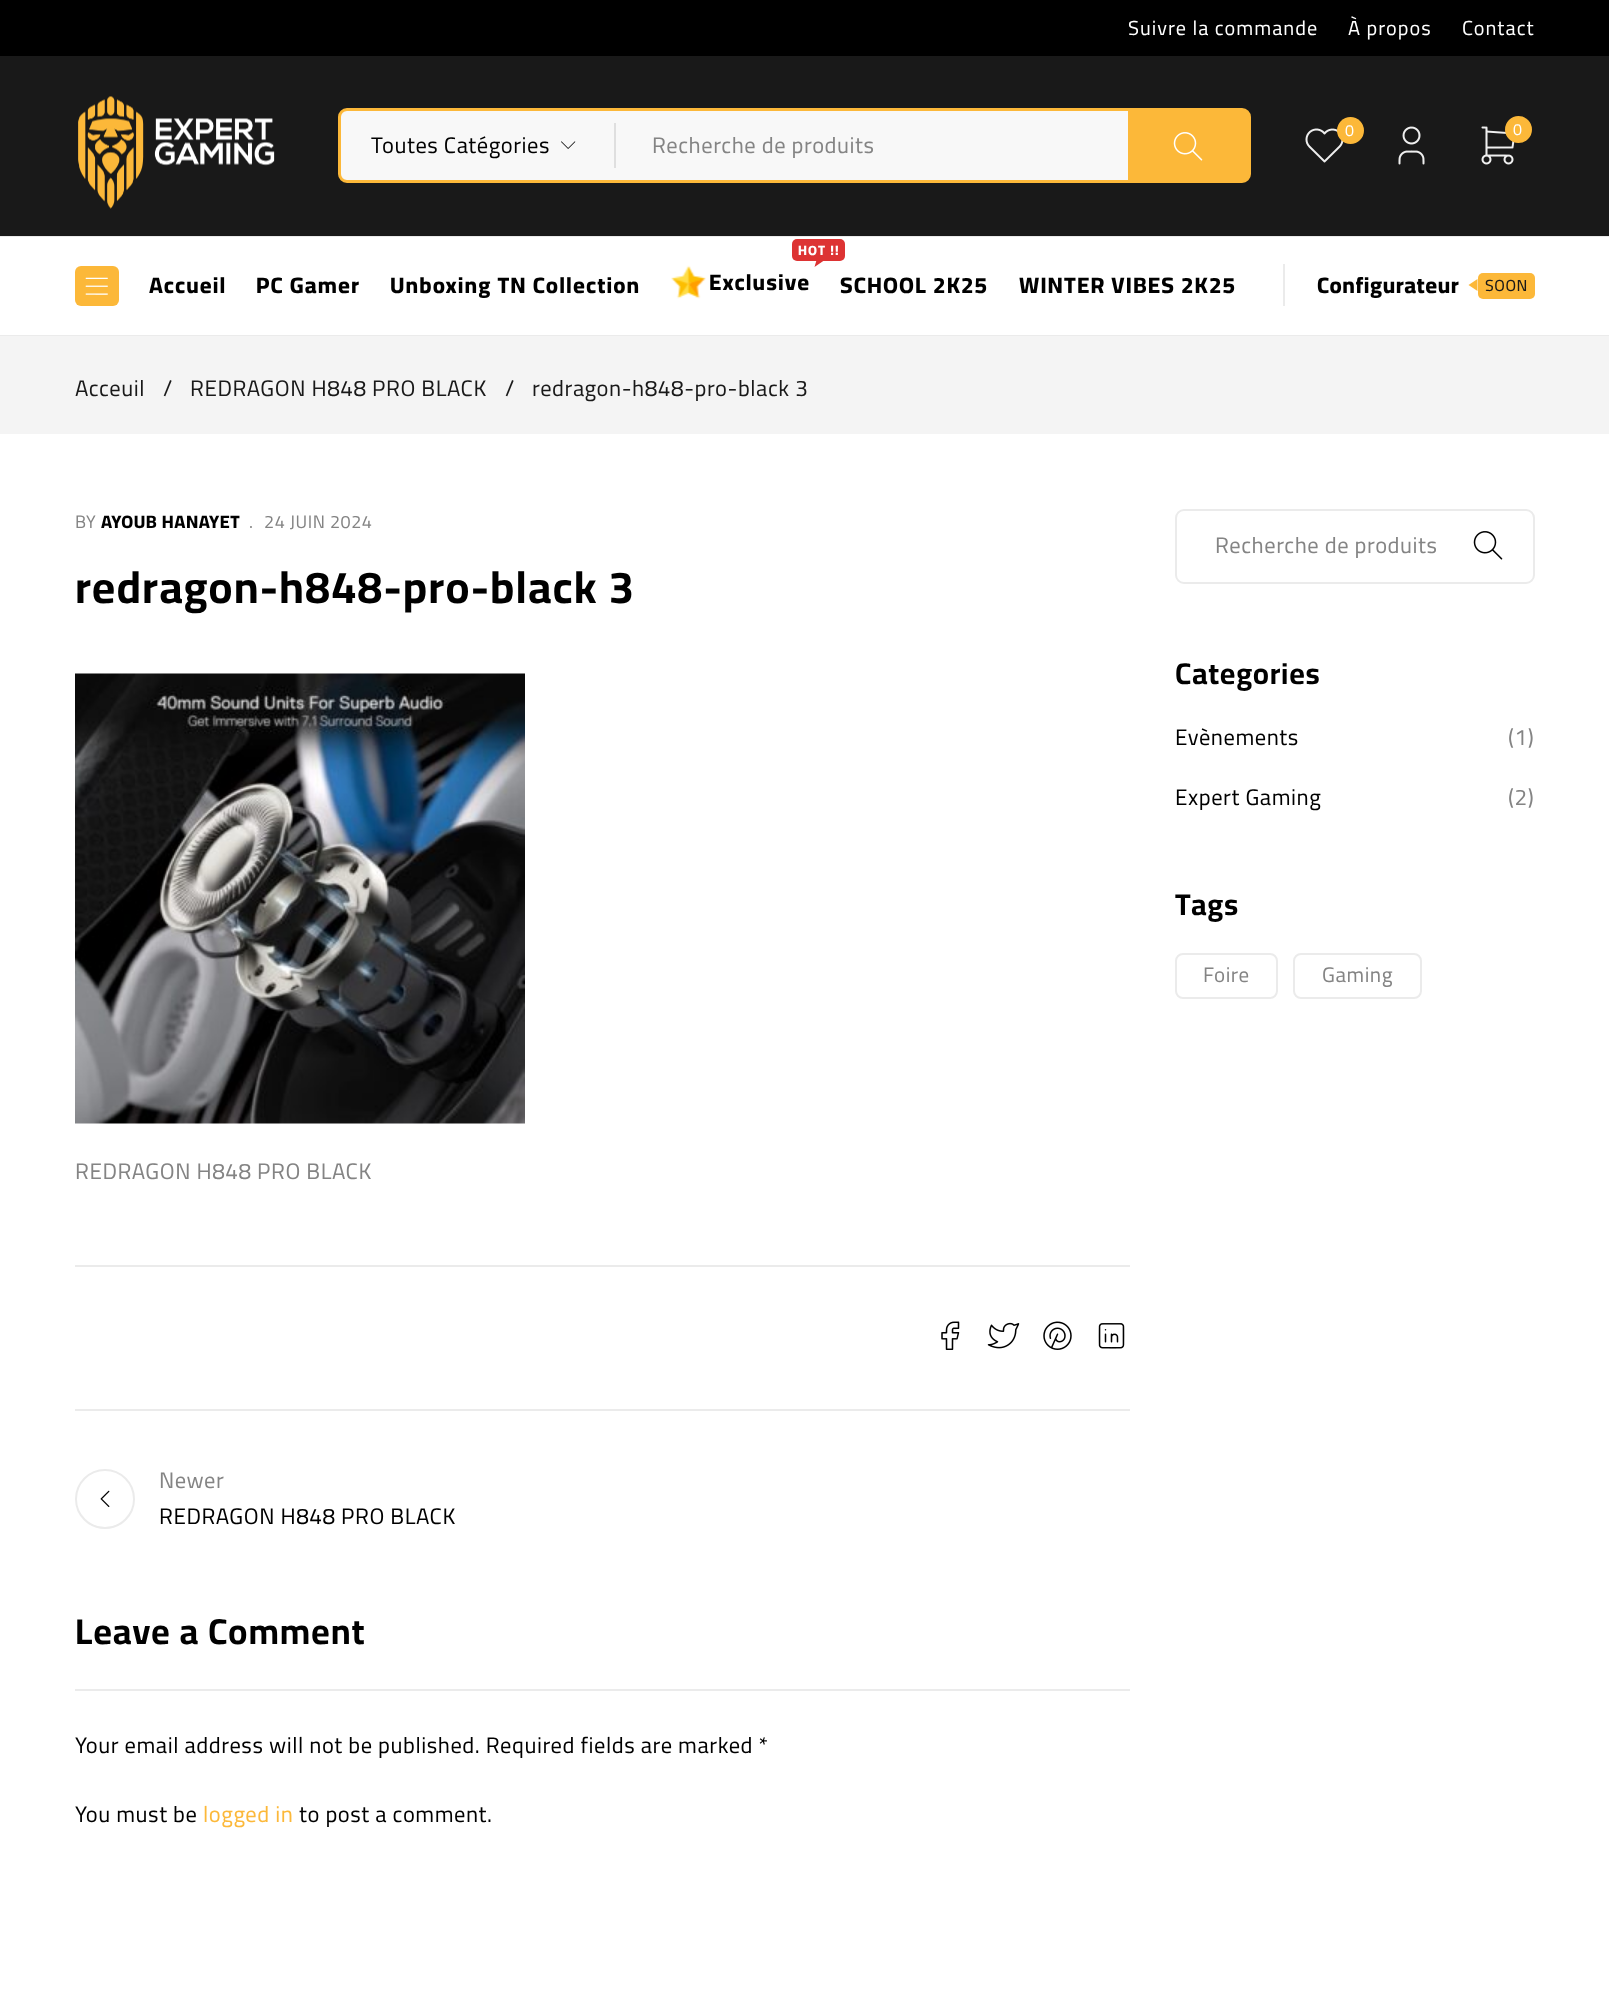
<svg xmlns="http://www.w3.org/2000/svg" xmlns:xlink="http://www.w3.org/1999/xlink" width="1609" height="1989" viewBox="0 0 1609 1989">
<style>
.cls-1{font:20.25px Cairo;letter-spacing:1px;fill:#ffffff}
.cls-2{font:16px Cairo;fill:#ffffff}
.cls-3{font:22.5px Cairo;letter-spacing:0.55px;fill:#000000}
.cls-4{font:22.5px Cairo;letter-spacing:0.55px;fill:#848484}
.cls-5{font:800 22.5px Cairo;letter-spacing:1.1px;fill:#000000}
.cls-6{font:800 13.5px Cairo;letter-spacing:1.1px;fill:#ffffff}
.cls-7{font:800 22.5px Cairo;letter-spacing:0.55px;fill:#000000}
.cls-8{font:500 16px Cairo;letter-spacing:0.55px;fill:#191919}
.cls-9{font:22.5px Cairo;letter-spacing:0.55px;fill:#191919}
.cls-10{font:18px Cairo;letter-spacing:0.55px;fill:#848484}
.cls-11{font:800 18px Cairo;letter-spacing:0.55px;fill:#000000}
.cls-12{font:bold 45px Cairo;letter-spacing:1.1px;fill:#000000}
.cls-13{font:bold 36px Cairo;letter-spacing:0.9px;fill:#000000}
.cls-14{font:22.5px Cairo;letter-spacing:0.55px;fill:#fcb839}
.cls-15{font:bold 30px Cairo;letter-spacing:0.75px;fill:#000000}
.cls-16{font:21px Cairo;letter-spacing:0.55px;fill:#848484}
</style>
<rect width="100%" height="100%" fill="#ffffff"/>
<rect fill="#000000" x="0" y="0" width="1609" height="56"/>
<rect fill="#191919" x="0" y="56" width="1609" height="180"/>
<rect fill="#ebebeb" x="0" y="236" width="1609" height="1"/>
<image xlink:href="image0.png" x="78" y="96" width="197" height="113"/>
<image xlink:href="image1.png" x="1305" y="128" width="39" height="35"/>
<circle fill="#fcb839" cx="1350.5" cy="130.5" r="13.5"/>
<image xlink:href="image2.png" x="1398" y="126" width="27" height="39"/>
<image xlink:href="image3.png" x="1481" y="126" width="34" height="39"/>
<circle fill="#fcb839" cx="1518.5" cy="129.5" r="13.5"/>
<rect fill="#f8f8f8" stroke="#fcb839" stroke-width="3" x="339.5" y="109.5" width="910" height="72" rx="7.5"/>
<image xlink:href="image4.png" x="561" y="141" width="15" height="8"/>
<rect fill="#dfdfdf" x="614" y="123" width="2" height="45"/>
<rect fill="#fcb839" x="1128" y="111" width="120" height="69"/>
<image xlink:href="image5.png" x="1173" y="132" width="30" height="29"/>
<rect fill="#ebebeb" x="0" y="335" width="1609" height="1"/>
<rect fill="#fcb839" x="75" y="266" width="44" height="40" rx="6"/>
<image xlink:href="image6.png" x="85" y="277" width="23" height="18"/>
<rect fill="#dd3333" x="792" y="239" width="53" height="22" rx="5"/>
<path fill="#dd3333" d="M814.5 267L817 258.5L824 260.5Z"/>
<image xlink:href="image7.png" x="671" y="265" width="35" height="34"/>
<rect fill="#ebebeb" x="1283" y="264" width="2" height="42"/>
<rect fill="#fcb839" x="1478" y="273" width="57" height="26" rx="5"/>
<path fill="#fcb839" d="M1477.5 279V291L1468.5 285Z"/>
<rect fill="#f4f4f4" x="0" y="336" width="1609" height="98"/>
<image xlink:href="image8.png" x="75" y="673" width="450" height="451"/>
<rect fill="#ebebeb" x="75" y="1265" width="1055" height="2"/>
<image xlink:href="image9.png" x="941" y="1321" width="19" height="29"/>
<image xlink:href="image10.png" x="987" y="1322" width="33" height="27"/>
<image xlink:href="image11.png" x="1043" y="1321" width="29" height="29"/>
<image xlink:href="image12.png" x="1098" y="1323" width="27" height="26"/>
<rect fill="#ebebeb" x="75" y="1409" width="1055" height="2"/>
<circle fill="none" stroke="#ebebeb" stroke-width="2" cx="105" cy="1499" r="29"/>
<image xlink:href="image13.png" x="100" y="1490" width="10" height="17"/>
<rect fill="#ebebeb" x="75" y="1689" width="1055" height="2"/>
<rect fill="none" stroke="#ebebeb" stroke-width="2" x="1176" y="510" width="358" height="73" rx="8"/>
<image xlink:href="image14.png" x="1473" y="531" width="30" height="29"/>
<rect fill="none" stroke="#ebebeb" stroke-width="2" x="1176" y="954" width="101" height="44" rx="7"/>
<rect fill="none" stroke="#ebebeb" stroke-width="2" x="1294" y="954" width="127" height="44" rx="7"/>
<text class="cls-1" x="1128" y="35">Suivre la commande</text>
<text class="cls-1" x="1348" y="35">À propos</text>
<text class="cls-1" x="1462" y="35">Contact</text>
<text class="cls-2" x="1345" y="136">0</text>
<text class="cls-2" x="1513" y="135">0</text>
<text class="cls-3" x="371" y="153">Toutes Catégories</text>
<text class="cls-4" x="652" y="153">Recherche de produits</text>
<text class="cls-5" x="149" y="293">Accueil</text>
<text class="cls-5" x="256" y="293">PC Gamer</text>
<text class="cls-5" x="390" y="293">Unboxing TN Collection</text>
<text class="cls-6" x="798" y="255">HOT !!</text>
<text class="cls-5" x="709" y="290">Exclusive</text>
<text class="cls-5" x="840" y="293">SCHOOL 2K25</text>
<text class="cls-5" x="1019" y="293">WINTER VIBES 2K25</text>
<text class="cls-7" x="1317" y="293">Configurateur</text>
<text class="cls-8" x="1485" y="291">SOON</text>
<text class="cls-9" x="75" y="396">Acceuil</text>
<text class="cls-9" x="163" y="396">/</text>
<text class="cls-9" x="190" y="396">REDRAGON H848 PRO BLACK</text>
<text class="cls-9" x="505" y="396">/</text>
<text class="cls-9" x="532" y="396">redragon-h848-pro-black 3</text>
<text class="cls-10" x="75" y="528">BY</text>
<text class="cls-11" x="101" y="528">AYOUB HANAYET</text>
<text class="cls-10" x="249" y="528">.</text>
<text class="cls-10" x="264" y="528">24 JUIN 2024</text>
<text class="cls-12" x="75" y="603">redragon-h848-pro-black 3</text>
<text class="cls-4" x="75" y="1179">REDRAGON H848 PRO BLACK</text>
<text class="cls-4" x="159" y="1488">Newer</text>
<text class="cls-3" x="159" y="1524">REDRAGON H848 PRO BLACK</text>
<text class="cls-13" x="75" y="1644">Leave a Comment</text>
<text class="cls-3" x="75" y="1753">Your email address will not be published. Required fields are marked *</text>
<text class="cls-3" x="75" y="1822">You must be</text>
<text class="cls-14" x="203" y="1822">logged in</text>
<text class="cls-3" x="299" y="1822">to post a comment.</text>
<text class="cls-4" x="1215" y="553">Recherche de produits</text>
<text class="cls-15" x="1175" y="684">Categories</text>
<text class="cls-3" x="1175" y="745">Evènements</text>
<text class="cls-4" x="1508" y="745">(1)</text>
<text class="cls-3" x="1175" y="805">Expert Gaming</text>
<text class="cls-4" x="1508" y="805">(2)</text>
<text class="cls-15" x="1175" y="915">Tags</text>
<text class="cls-16" x="1203" y="982">Foire</text>
<text class="cls-16" x="1322" y="982">Gaming</text>
</svg>
